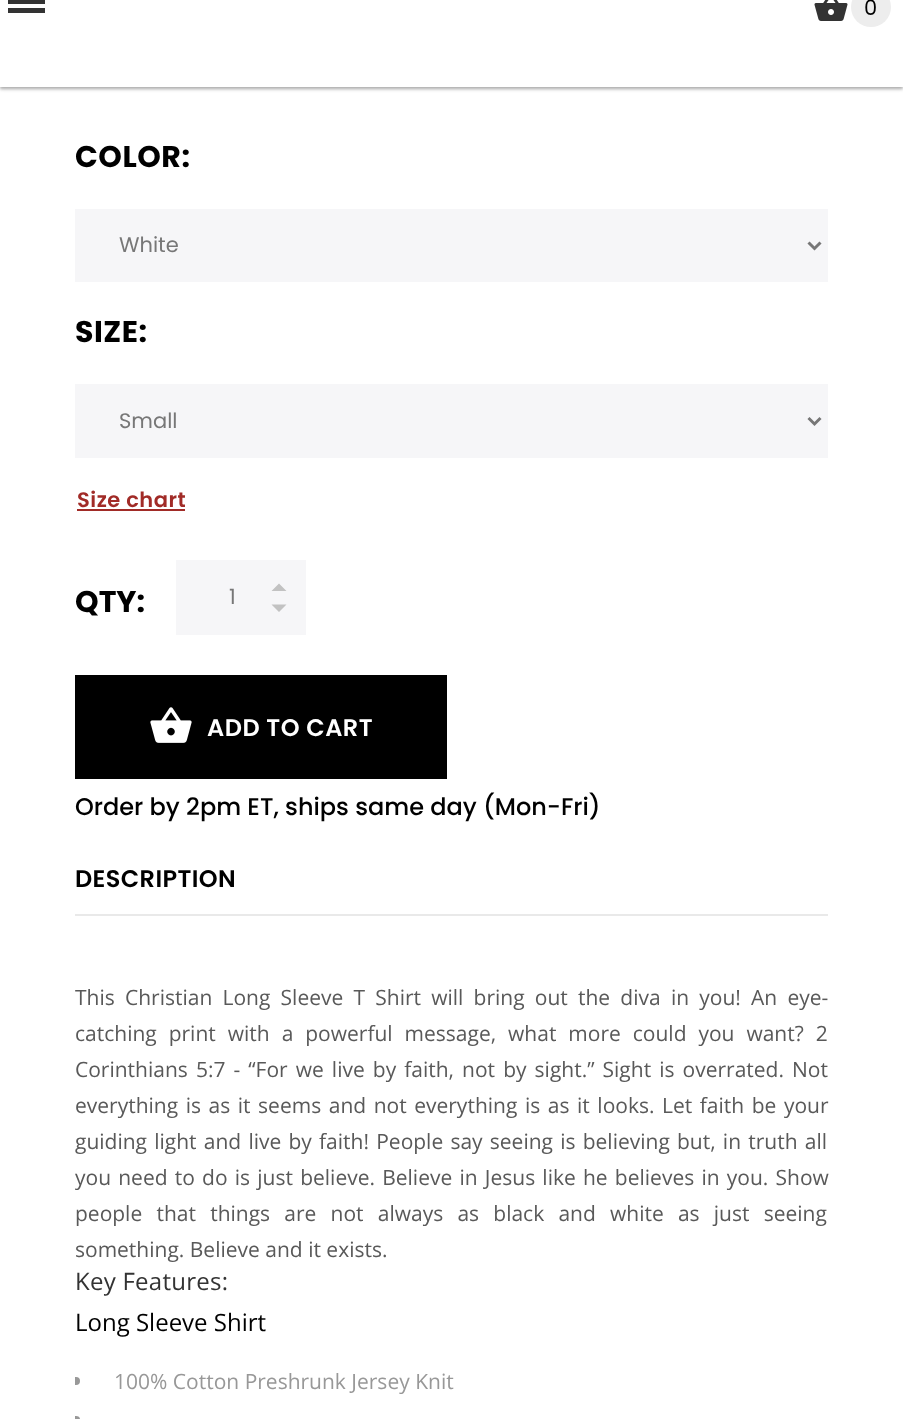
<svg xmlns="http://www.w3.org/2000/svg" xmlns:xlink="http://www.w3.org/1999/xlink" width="903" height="1419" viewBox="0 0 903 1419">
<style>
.cls-1{font:21px Poppins;fill:#000000}
.cls-2{font:bold 30px Poppins;letter-spacing:0.5px;fill:#000000}
.cls-3{font:21px Poppins;fill:#777777}
.cls-4{font:600 21px Poppins;letter-spacing:0.5px;fill:#a12b27}
.cls-5{font:bold 30px Poppins;fill:#000000}
.cls-6{font:600 24px Poppins;letter-spacing:0.5px;fill:#ffffff}
.cls-7{font:500 24px Poppins;fill:#000000}
.cls-8{font:600 24px Poppins;letter-spacing:0.4px;fill:#000000}
.cls-9{font:21px Open Sans;fill:#595959}
.cls-10{font:24px Open Sans;letter-spacing:0.25px;fill:#333333}
.cls-11{font:24px Open Sans;fill:#000000}
.cls-12{font:21px Open Sans;fill:#989898}
</style>
<defs>
<clipPath id="clip1"><rect x="75" y="1364" width="753" height="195"/></clipPath>
</defs>
<rect width="100%" height="100%" fill="#ffffff"/>
<rect fill="#000000" fill-opacity="0.24" filter="blur(1.5px)" x="0" y="0" width="903" height="89"/>
<rect fill="#000000" fill-opacity="0.12" filter="blur(2px)" x="0" y="0" width="903" height="89"/>
<rect fill="#ffffff" x="0" y="0" width="903" height="87"/>
<rect fill="#333333" x="8" y="0" width="37" height="4"/>
<rect fill="#333333" x="8" y="8" width="37" height="5"/>
<image xlink:href="image0.png" x="814" y="0" width="34" height="21"/>
<circle fill="#ededed" cx="871" cy="7" r="20"/>
<rect fill="#f6f6f8" x="75" y="209" width="753" height="73"/>
<path fill="none" stroke="#777777" stroke-width="3" d="M808.5 242.5L814.5 248.5L820.5 242.5"/>
<rect fill="#f6f6f8" x="75" y="384" width="753" height="74"/>
<path fill="none" stroke="#777777" stroke-width="3" d="M808.5 418L814.5 424L820.5 418"/>
<rect fill="#a12b27" x="77" y="509" width="108" height="2"/>
<rect fill="#f6f6f8" x="176" y="560" width="130" height="75"/>
<path fill="#c2c2c2" d="M271.5 604.5H286.5L279 612ZM271.5 591L279 583.5L286.5 591Z"/>
<rect fill="#000000" x="75" y="675" width="372" height="104"/>
<image xlink:href="image1.png" x="150" y="707" width="42" height="36"/>
<rect fill="#e9e9e9" x="75" y="914" width="753" height="2"/>
<g clip-path="url(#clip1)">
<circle fill="#989898" cx="76" cy="1381" r="4"/>
<rect fill="#989898" x="72" y="1416" width="8" height="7" rx="4"/>
</g>
<text class="cls-1" x="864" y="15">0</text>
<text class="cls-2" x="75" y="167">COLOR:</text>
<text class="cls-3" x="119" y="252">White</text>
<text class="cls-2" x="75" y="342">SIZE:</text>
<text class="cls-3" x="119" y="428">Small</text>
<text class="cls-4" x="77" y="507">Size chart</text>
<text class="cls-5" x="75" y="612">QTY:</text>
<text class="cls-3" x="229" y="604">1</text>
<text class="cls-6" x="207" y="736">ADD TO CART</text>
<text class="cls-7" x="75" y="815">Order by 2pm ET, ships same day (Mon-Fri)</text>
<text class="cls-8" x="75" y="887">DESCRIPTION</text>
<text class="cls-9"><tspan x="75" y="1005" word-spacing="4.75">This Christian Long Sleeve T Shirt will bring out the diva in you! An eye-</tspan><tspan x="75" y="1041" word-spacing="6.5">catching print with a powerful message, what more could you want? 2</tspan><tspan x="75" y="1077" word-spacing="2.6">Corinthians 5:7 - “For we live by faith, not by sight.” Sight is overrated. Not</tspan><tspan x="75" y="1113" word-spacing="2.1">everything is as it seems and not everything is as it looks. Let faith be your</tspan><tspan x="75" y="1149" word-spacing="1.75">guiding light and live by faith! People say seeing is believing but, in truth all</tspan><tspan x="75" y="1185" word-spacing="1.75">you need to do is just believe. Believe in Jesus like he believes in you. Show</tspan><tspan x="75" y="1221" word-spacing="8.75">people that things are not always as black and white as just seeing</tspan><tspan x="75" y="1257">something. Believe and it exists.</tspan></text>
<text class="cls-10" x="75" y="1290">Key Features:</text>
<text class="cls-11" x="75" y="1331">Long Sleeve Shirt</text>
<text class="cls-12" x="114" y="1389">100% Cotton Preshrunk Jersey Knit</text>
</svg>
